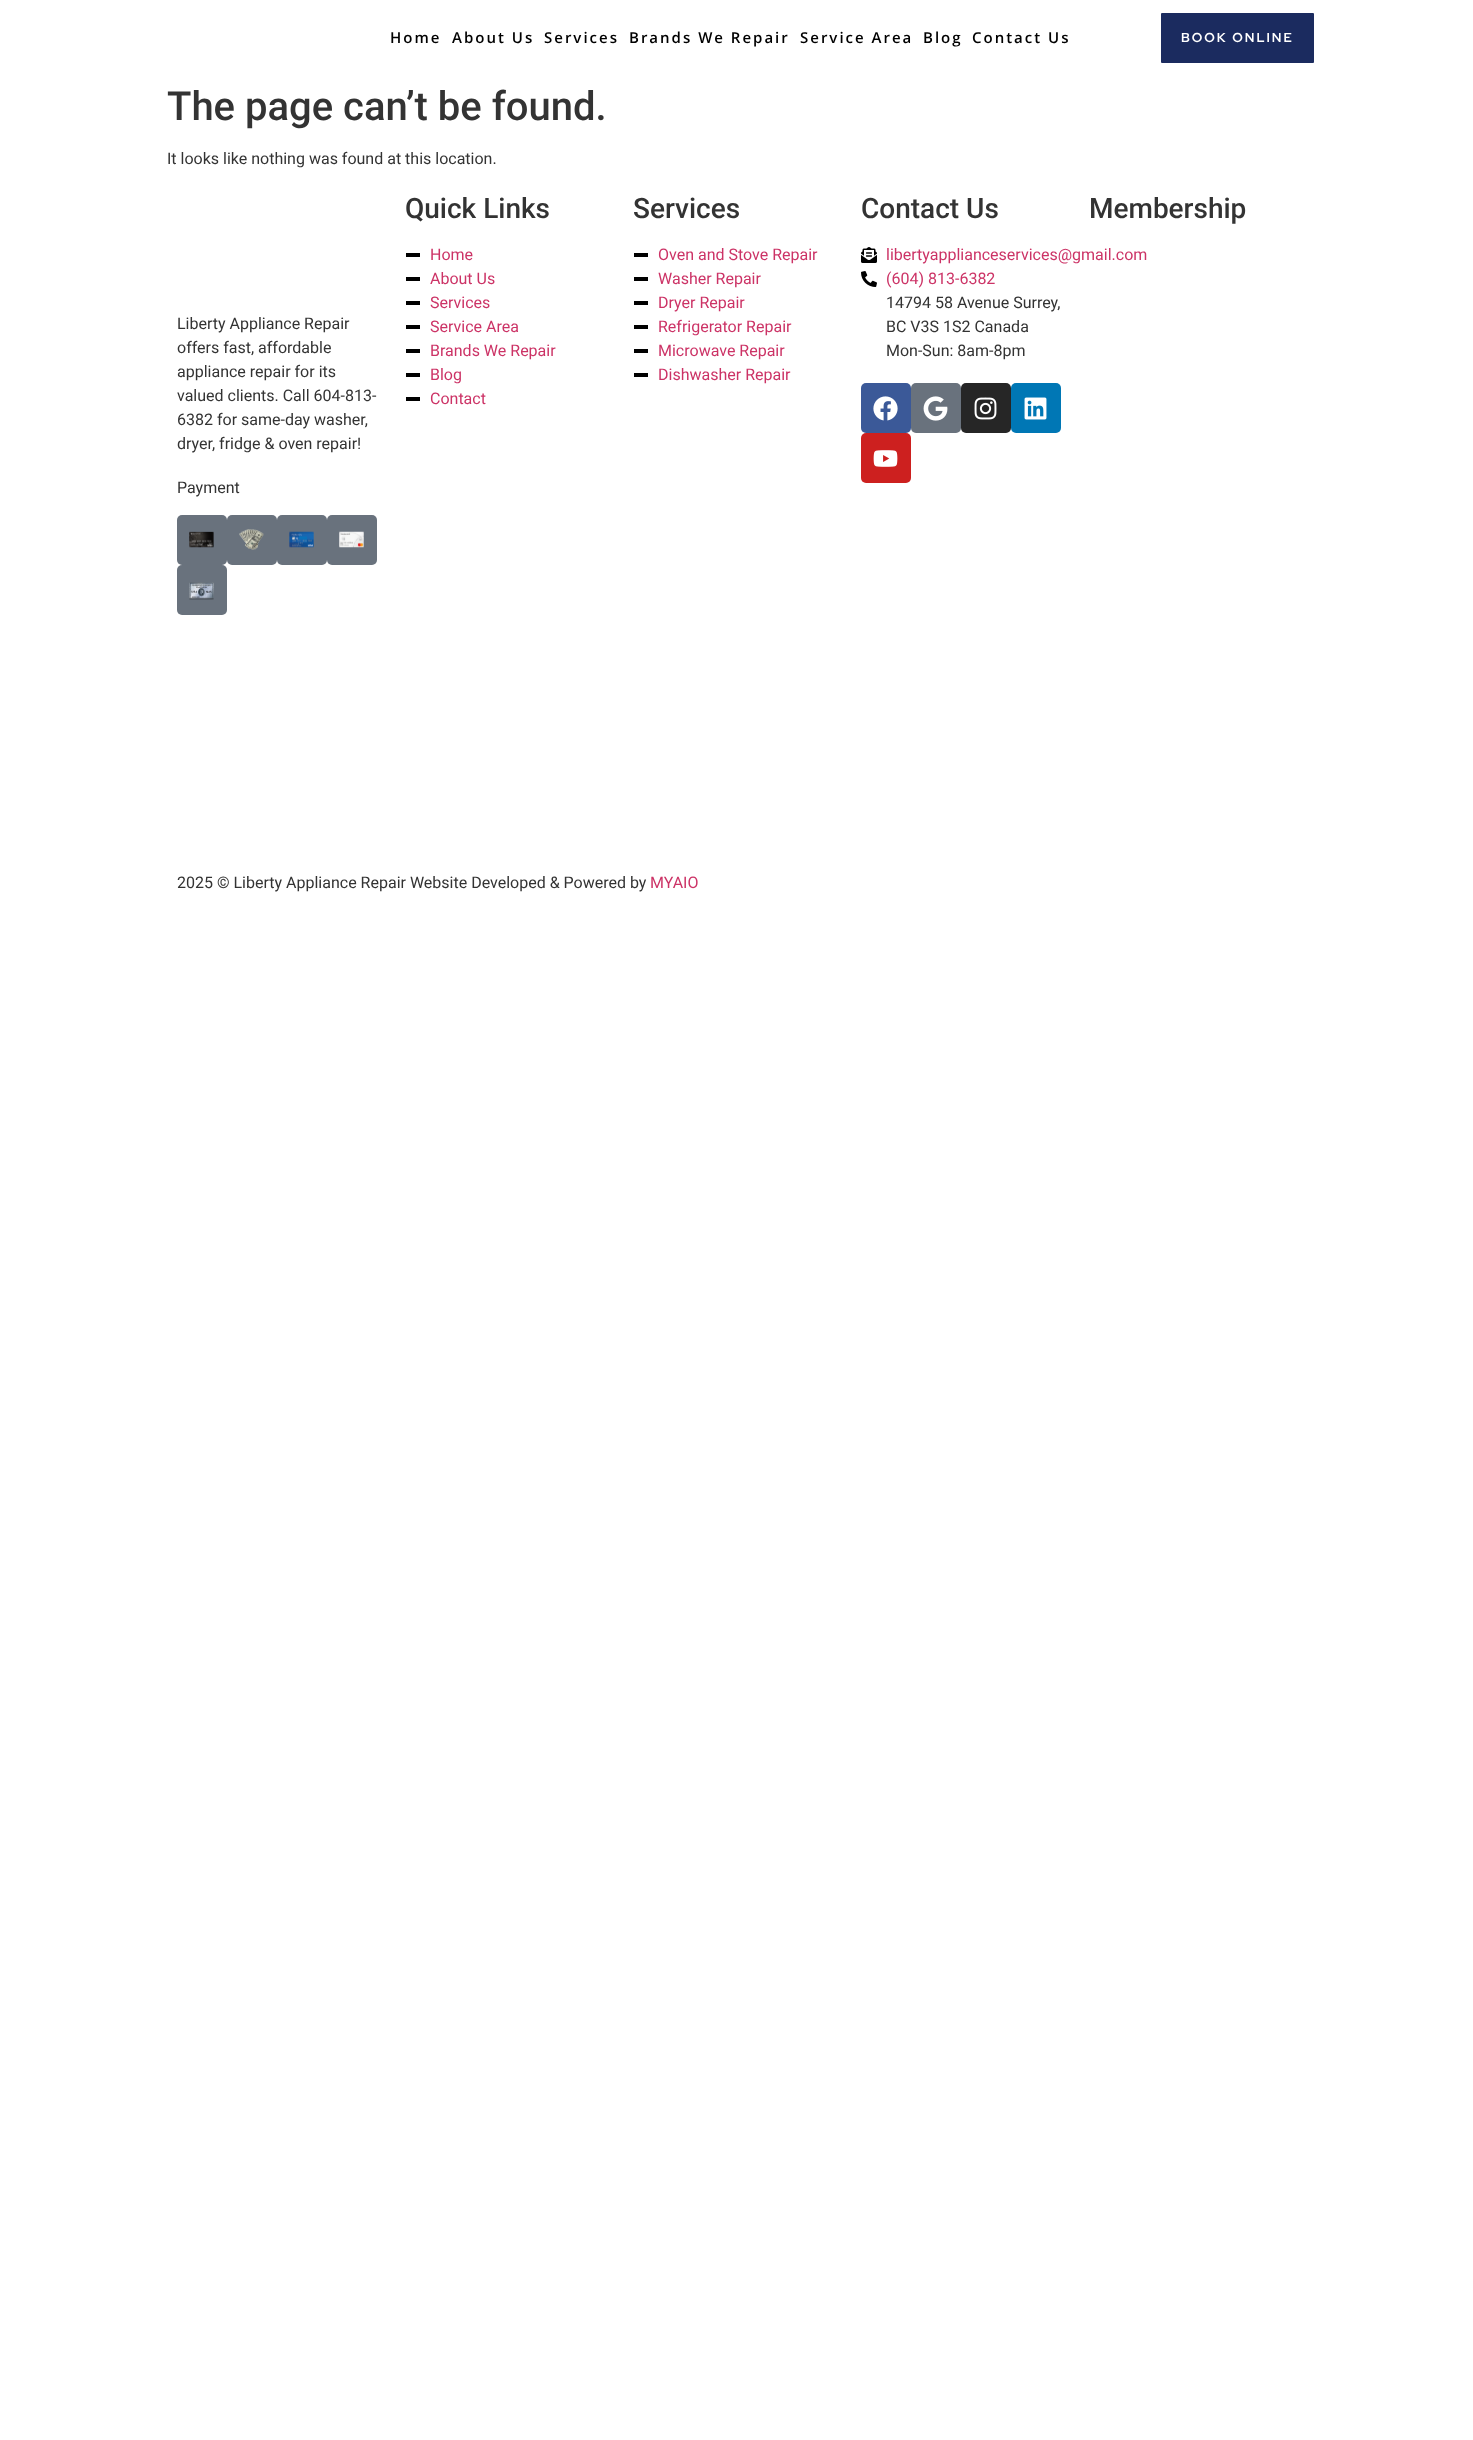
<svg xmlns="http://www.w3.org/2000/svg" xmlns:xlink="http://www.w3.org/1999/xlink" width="1473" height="2440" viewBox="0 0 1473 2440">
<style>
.cls-1{font:600 15px Open Sans;letter-spacing:2px;fill:#000000}
.cls-2{font:bold 13px Red Hat Display;letter-spacing:2px;fill:#ffffff}
.cls-3{font:500 40px Roboto;fill:#333333}
.cls-4{font:16px Roboto;fill:#333333}
.cls-5{font:500 28px Roboto;fill:#333333}
.cls-6{font:16px Roboto;fill:#cc3366}
</style>
<rect width="100%" height="100%" fill="#ffffff"/>
<rect fill="#1b2b5f" x="1161" y="13" width="153" height="50" rx="1"/>
<rect fill="#000000" x="406" y="253" width="14" height="4"/>
<rect fill="#000000" x="406" y="277" width="14" height="4"/>
<rect fill="#000000" x="406" y="301" width="14" height="4"/>
<rect fill="#000000" x="406" y="325" width="14" height="4"/>
<rect fill="#000000" x="406" y="349" width="14" height="4"/>
<rect fill="#000000" x="406" y="373" width="14" height="4"/>
<rect fill="#000000" x="406" y="397" width="14" height="4"/>
<rect fill="#000000" x="634" y="253" width="14" height="4"/>
<rect fill="#000000" x="634" y="277" width="14" height="4"/>
<rect fill="#000000" x="634" y="301" width="14" height="4"/>
<rect fill="#000000" x="634" y="325" width="14" height="4"/>
<rect fill="#000000" x="634" y="349" width="14" height="4"/>
<rect fill="#000000" x="634" y="373" width="14" height="4"/>
<image xlink:href="image0.png" x="861" y="247" width="16" height="16"/>
<image xlink:href="image1.png" x="861" y="271" width="16" height="16"/>
<rect fill="#3b5998" x="861" y="383" width="50" height="50" rx="5"/>
<image xlink:href="image2.png" x="873" y="396" width="25" height="25"/>
<rect fill="#69727d" x="911" y="383" width="50" height="50" rx="5"/>
<image xlink:href="image3.png" x="923" y="396" width="25" height="25"/>
<rect fill="#262626" x="961" y="383" width="50" height="50" rx="5"/>
<image xlink:href="image4.png" x="974" y="397" width="23" height="23"/>
<rect fill="#0077b5" x="1011" y="383" width="50" height="50" rx="5"/>
<image xlink:href="image5.png" x="1024" y="397" width="23" height="23"/>
<rect fill="#cd201f" x="861" y="433" width="50" height="50" rx="5"/>
<image xlink:href="image6.png" x="873" y="450" width="25" height="17"/>
<rect fill="#69727d" x="177" y="515" width="50" height="50" rx="5"/>
<image xlink:href="image7.png" x="189" y="531" width="25" height="17"/>
<rect fill="#69727d" x="227" y="515" width="50" height="50" rx="5"/>
<image xlink:href="image8.png" x="239" y="529" width="25" height="21"/>
<rect fill="#69727d" x="277" y="515" width="50" height="50" rx="5"/>
<image xlink:href="image9.png" x="289" y="531" width="25" height="17"/>
<rect fill="#69727d" x="327" y="515" width="50" height="50" rx="5"/>
<image xlink:href="image10.png" x="339" y="531" width="25" height="17"/>
<rect fill="#69727d" x="177" y="565" width="50" height="50" rx="5"/>
<image xlink:href="image11.png" x="189" y="582" width="25" height="18"/>
<text class="cls-1" x="390" y="43">Home</text>
<text class="cls-1" x="452" y="43">About Us</text>
<text class="cls-1" x="544" y="43">Services</text>
<text class="cls-1" x="629" y="43">Brands We Repair</text>
<text class="cls-1" x="800" y="43">Service Area</text>
<text class="cls-1" x="923" y="43">Blog</text>
<text class="cls-1" x="972" y="43">Contact Us</text>
<text class="cls-2" x="1181" y="42">BOOK ONLINE</text>
<text class="cls-3" x="167" y="120">The page can’t be found.</text>
<text class="cls-4" x="167" y="164">It looks like nothing was found at this location.</text>
<text class="cls-5" x="405" y="218">Quick Links</text>
<text class="cls-6"><tspan x="430" y="260">Home</tspan><tspan x="430" y="284">About Us</tspan><tspan x="430" y="308">Services</tspan><tspan x="430" y="332">Service Area</tspan><tspan x="430" y="356">Brands We Repair</tspan><tspan x="430" y="380">Blog</tspan><tspan x="430" y="404">Contact</tspan></text>
<text class="cls-5" x="633" y="218">Services</text>
<text class="cls-6"><tspan x="658" y="260">Oven and Stove Repair</tspan><tspan x="658" y="284">Washer Repair</tspan><tspan x="658" y="308">Dryer Repair</tspan><tspan x="658" y="332">Refrigerator Repair</tspan><tspan x="658" y="356">Microwave Repair</tspan><tspan x="658" y="380">Dishwasher Repair</tspan></text>
<text class="cls-5" x="861" y="218">Contact Us</text>
<text class="cls-6"><tspan x="886" y="260">libertyapplianceservices@gmail.com</tspan><tspan x="886" y="284">(604) 813-6382</tspan></text>
<text class="cls-4"><tspan x="886" y="308">14794 58 Avenue Surrey,</tspan><tspan x="886" y="332">BC V3S 1S2 Canada</tspan><tspan x="886" y="356">Mon-Sun: 8am-8pm</tspan></text>
<text class="cls-5" x="1089" y="218">Membership</text>
<text class="cls-4"><tspan x="177" y="329">Liberty Appliance Repair</tspan><tspan x="177" y="353">offers fast, affordable</tspan><tspan x="177" y="377">appliance repair for its</tspan><tspan x="177" y="401">valued clients. Call 604-813-</tspan><tspan x="177" y="425">6382 for same-day washer,</tspan><tspan x="177" y="449">dryer, fridge &amp; oven repair!</tspan></text>
<text class="cls-4" x="177" y="493">Payment</text>
<text class="cls-4" x="177" y="888">2025 © Liberty Appliance Repair Website Developed &amp; Powered by</text>
<text class="cls-6" x="650" y="888">MYAIO</text>
</svg>
